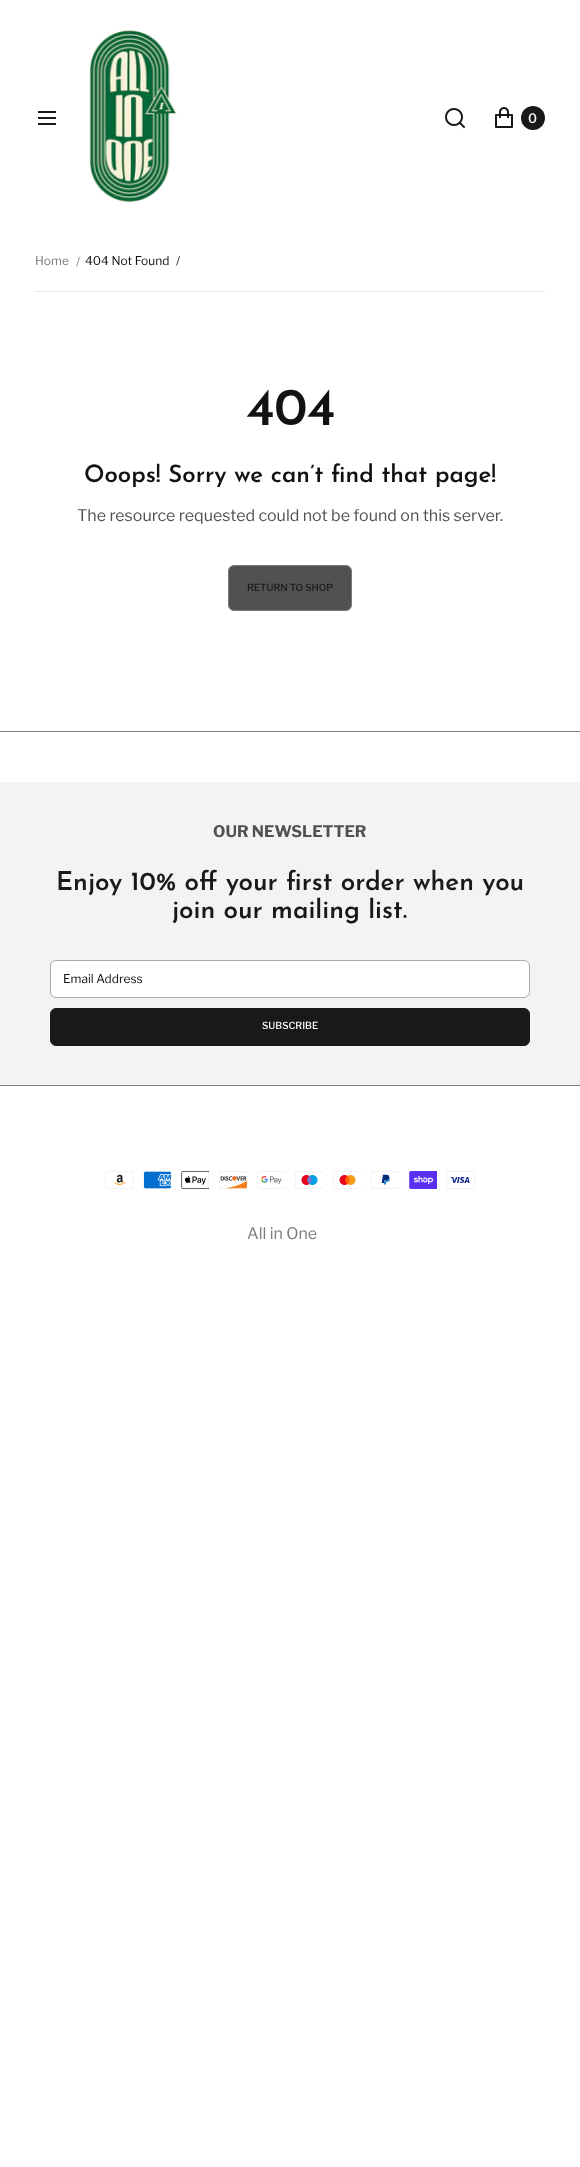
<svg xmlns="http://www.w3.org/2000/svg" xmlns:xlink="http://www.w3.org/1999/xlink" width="580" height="2167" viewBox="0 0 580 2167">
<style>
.cls-1{font:500 13px Libre Franklin;fill:#ffffff}
.cls-2{font:12px Libre Franklin;fill:#7c7c7c}
.cls-3{font:12px Libre Franklin;fill:#121212}
.cls-4{font:600 53px Josefin Sans;letter-spacing:-0.5px;fill:#121212}
.cls-5{font:600 24px Josefin Sans;fill:#121212}
.cls-6{font:16px Libre Franklin;fill:#505152}
.cls-7{font:500 9.75px Libre Franklin;fill:#191919}
.cls-8{font:bold 16px Libre Franklin;fill:#505152}
.cls-9{font:600 26px Josefin Sans;fill:#191919}
.cls-10{font:500 9.75px Libre Franklin;fill:#ffffff}
.cls-11{font:16px Libre Franklin;fill:#7c7c7c}
</style>
<rect width="100%" height="100%" fill="#ffffff"/>
<rect fill="#191919" x="38" y="111" width="18" height="2"/>
<rect fill="#191919" x="38" y="117" width="18" height="2"/>
<rect fill="#191919" x="38" y="123" width="18" height="2"/>
<image xlink:href="image0.png" x="89" y="29" width="88" height="174"/>
<image xlink:href="image1.png" x="445" y="108" width="21" height="21"/>
<image xlink:href="image2.png" x="495" y="107" width="18" height="21"/>
<circle fill="#191919" cx="533" cy="118" r="12"/>
<rect fill="#ebebeb" x="35" y="291" width="510" height="1"/>
<rect fill="#505152" stroke="#797b7e" x="228.5" y="565.5" width="123" height="45" rx="5.5"/>
<rect fill="#7c7c7c" x="0" y="731" width="580" height="1"/>
<rect fill="#f3f3f3" x="0" y="782" width="580" height="303"/>
<rect fill="#7c7c7c" x="0" y="1085" width="580" height="1"/>
<rect fill="#ffffff" stroke="#a9aaab" x="50.5" y="960.5" width="479" height="37" rx="5.5"/>
<rect fill="#191919" stroke="#191919" x="50.5" y="1008.5" width="479" height="37" rx="5.5"/>
<image xlink:href="image3.png" x="105" y="1171" width="29" height="18"/>
<image xlink:href="image4.png" x="143" y="1171" width="28" height="18"/>
<image xlink:href="image5.png" x="181" y="1171" width="28" height="18"/>
<image xlink:href="image6.png" x="219" y="1171" width="28" height="18"/>
<image xlink:href="image7.png" x="257" y="1171" width="28" height="18"/>
<image xlink:href="image8.png" x="295" y="1171" width="28" height="18"/>
<image xlink:href="image9.png" x="333" y="1171" width="28" height="18"/>
<image xlink:href="image10.png" x="371" y="1171" width="28" height="18"/>
<image xlink:href="image11.png" x="409" y="1171" width="28" height="18"/>
<image xlink:href="image12.png" x="446" y="1171" width="29" height="18"/>
<text class="cls-1" x="528" y="123">0</text>
<text class="cls-2" x="35" y="265">Home</text>
<text class="cls-2" x="76" y="266">/</text>
<text class="cls-3" x="85" y="265">404 Not Found</text>
<text class="cls-3" x="176" y="265">/</text>
<text class="cls-4" x="246" y="425">404</text>
<text class="cls-5" x="84" y="482">Ooops! Sorry we can’t find that page!</text>
<text class="cls-6" x="77" y="521">The resource requested could not be found on this server.</text>
<text class="cls-7" x="247" y="591">RETURN TO SHOP</text>
<text class="cls-8" x="213" y="837">OUR NEWSLETTER</text>
<text class="cls-9" x="56" y="890">Enjoy 10% off your first order when you</text>
<text class="cls-9" x="172" y="918">join our mailing list.</text>
<text class="cls-3" x="63" y="983">Email Address</text>
<text class="cls-10" x="262" y="1029">SUBSCRIBE</text>
<text class="cls-11" x="247" y="1239">All in One</text>
</svg>
